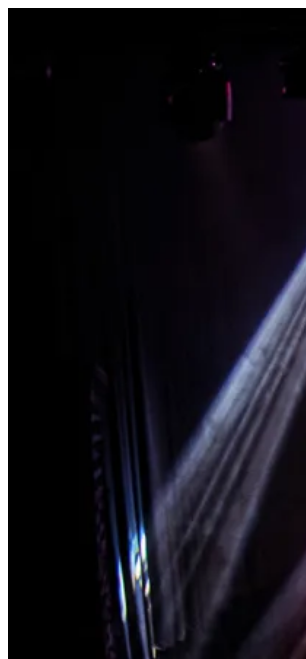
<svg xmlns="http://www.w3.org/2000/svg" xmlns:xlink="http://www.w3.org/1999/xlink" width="306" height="659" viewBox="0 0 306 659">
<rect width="100%" height="100%" fill="#ffffff"/>
<image xlink:href="image0.png" x="8" y="8" width="298" height="651"/>
</svg>
